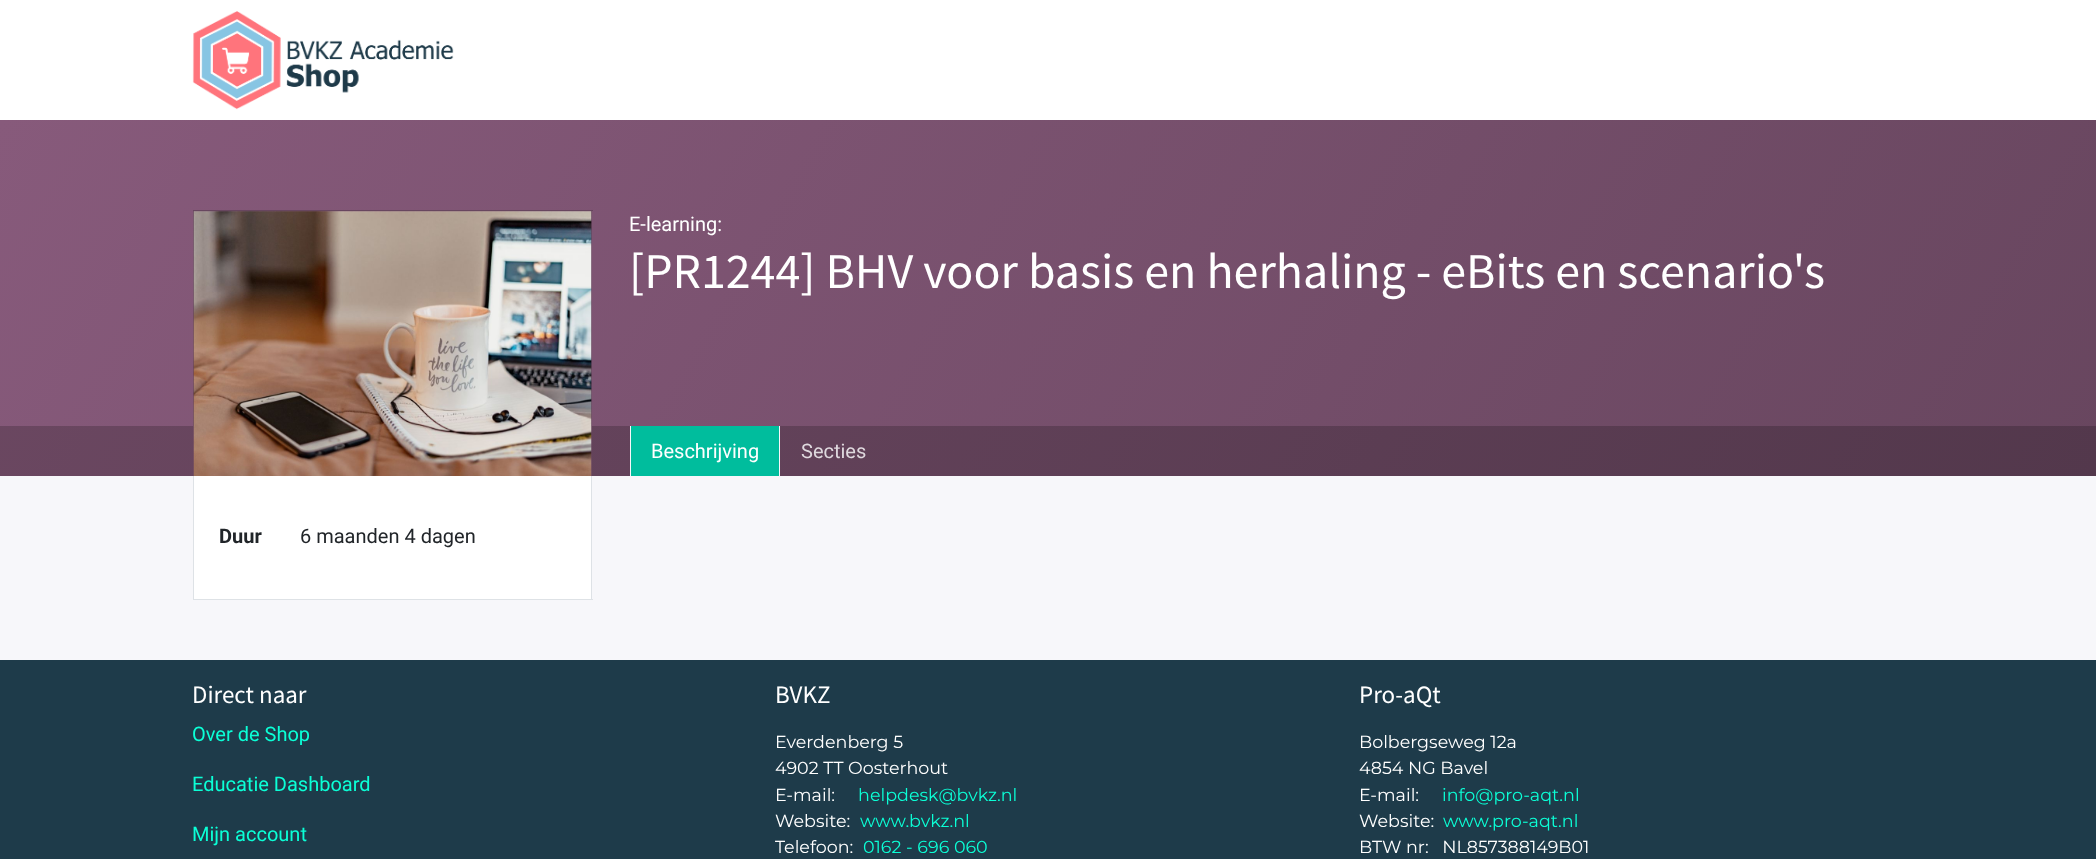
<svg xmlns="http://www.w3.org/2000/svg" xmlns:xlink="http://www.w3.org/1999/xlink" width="2096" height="859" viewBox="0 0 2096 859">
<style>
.cls-1{font:20px Roboto;fill:#ffffff}
.cls-2{font:50px Source Sans Pro;fill:#ffffff}
.cls-3{font:20px Roboto;fill:#dfd9de}
.cls-4{font:bold 20px Roboto;fill:#212529}
.cls-5{font:20px Roboto;fill:#212529}
.cls-6{font:25px Source Sans Pro;fill:#ffffff}
.cls-7{font:20px Roboto;fill:#0bffd6}
.cls-8{font:17.5px Montserrat;fill:#ffffff}
.cls-9{font:17.5px Montserrat;fill:#0bffd6}
</style>
<defs>
<linearGradient id="g1" gradientUnits="userSpaceOnUse" x1="185" y1="-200" x2="1911" y2="797"><stop offset="0" stop-color="#875a7b"/><stop offset="1" stop-color="#68465f"/></linearGradient>
<linearGradient id="g2" gradientUnits="userSpaceOnUse" x1="185" y1="-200" x2="1911" y2="797"><stop offset="0" stop-color="#6c4862"/><stop offset="1" stop-color="#53384c"/></linearGradient>
</defs>
<rect width="100%" height="100%" fill="#ffffff"/>
<image xlink:href="image0.png" x="192" y="11" width="262" height="99"/>
<rect fill="url(#g1)" x="0" y="120" width="2096" height="306"/>
<rect fill="url(#g2)" x="0" y="426" width="2096" height="50"/>
<rect fill="#68465f" x="193" y="210" width="400" height="1"/>
<rect fill="#68465f" x="591" y="210" width="1" height="266"/>
<rect fill="#68465f" x="193" y="210" width="1" height="216"/>
<image xlink:href="image1.png" x="193" y="211" width="399" height="265"/>
<rect fill="#f7f7fa" x="0" y="476" width="2096" height="184"/>
<rect fill="#00bd9d" x="631" y="426" width="148" height="50"/>
<rect fill="#f7f7fa" x="779" y="426" width="1" height="50"/>
<rect fill="#f7f7fa" x="630" y="426" width="1" height="50"/>
<rect fill="#ffffff" x="194" y="476" width="397" height="123"/>
<rect fill="#dee2e6" x="591" y="476" width="1" height="124"/>
<rect fill="#dee2e6" x="193" y="599" width="400" height="1"/>
<rect fill="#dee2e6" x="193" y="476" width="1" height="124"/>
<rect fill="#1e3b4a" x="0" y="660" width="2096" height="199"/>
<text class="cls-1" x="629" y="231">E-learning:</text>
<text class="cls-2" x="629" y="288">[PR1244] BHV voor basis en herhaling - eBits en scenario's</text>
<text class="cls-1" x="651" y="458">Beschrijving</text>
<text class="cls-3" x="801" y="458">Secties</text>
<text class="cls-4" x="219" y="543">Duur</text>
<text class="cls-5" x="300" y="543">6 maanden 4 dagen</text>
<text class="cls-6" x="192" y="703">Direct naar</text>
<text class="cls-7" x="192" y="741">Over de Shop</text>
<text class="cls-7" x="192" y="791">Educatie Dashboard</text>
<text class="cls-7" x="192" y="841">Mijn account</text>
<text class="cls-6" x="775" y="703">BVKZ</text>
<text class="cls-8"><tspan x="775" y="748">Everdenberg 5</tspan><tspan x="775" y="774">4902 TT Oosterhout</tspan><tspan x="775" y="801">E-mail:</tspan></text>
<text class="cls-9" x="858" y="801">helpdesk@bvkz.nl</text>
<text class="cls-8" x="775" y="827">Website:</text>
<text class="cls-9" x="860" y="827">www.bvkz.nl</text>
<text class="cls-8" x="775" y="853">Telefoon:</text>
<text class="cls-9" x="863" y="853">0162 - 696 060</text>
<text class="cls-6" x="1359" y="703">Pro-aQt</text>
<text class="cls-8"><tspan x="1359" y="748">Bolbergseweg 12a</tspan><tspan x="1359" y="774">4854 NG Bavel</tspan><tspan x="1359" y="801">E-mail:</tspan></text>
<text class="cls-9" x="1442" y="801">info@pro-aqt.nl</text>
<text class="cls-8" x="1359" y="827">Website:</text>
<text class="cls-9" x="1443" y="827">www.pro-aqt.nl</text>
<text class="cls-8" xml:space="preserve" x="1359" y="853">BTW nr:   NL857388149B01</text>
</svg>
